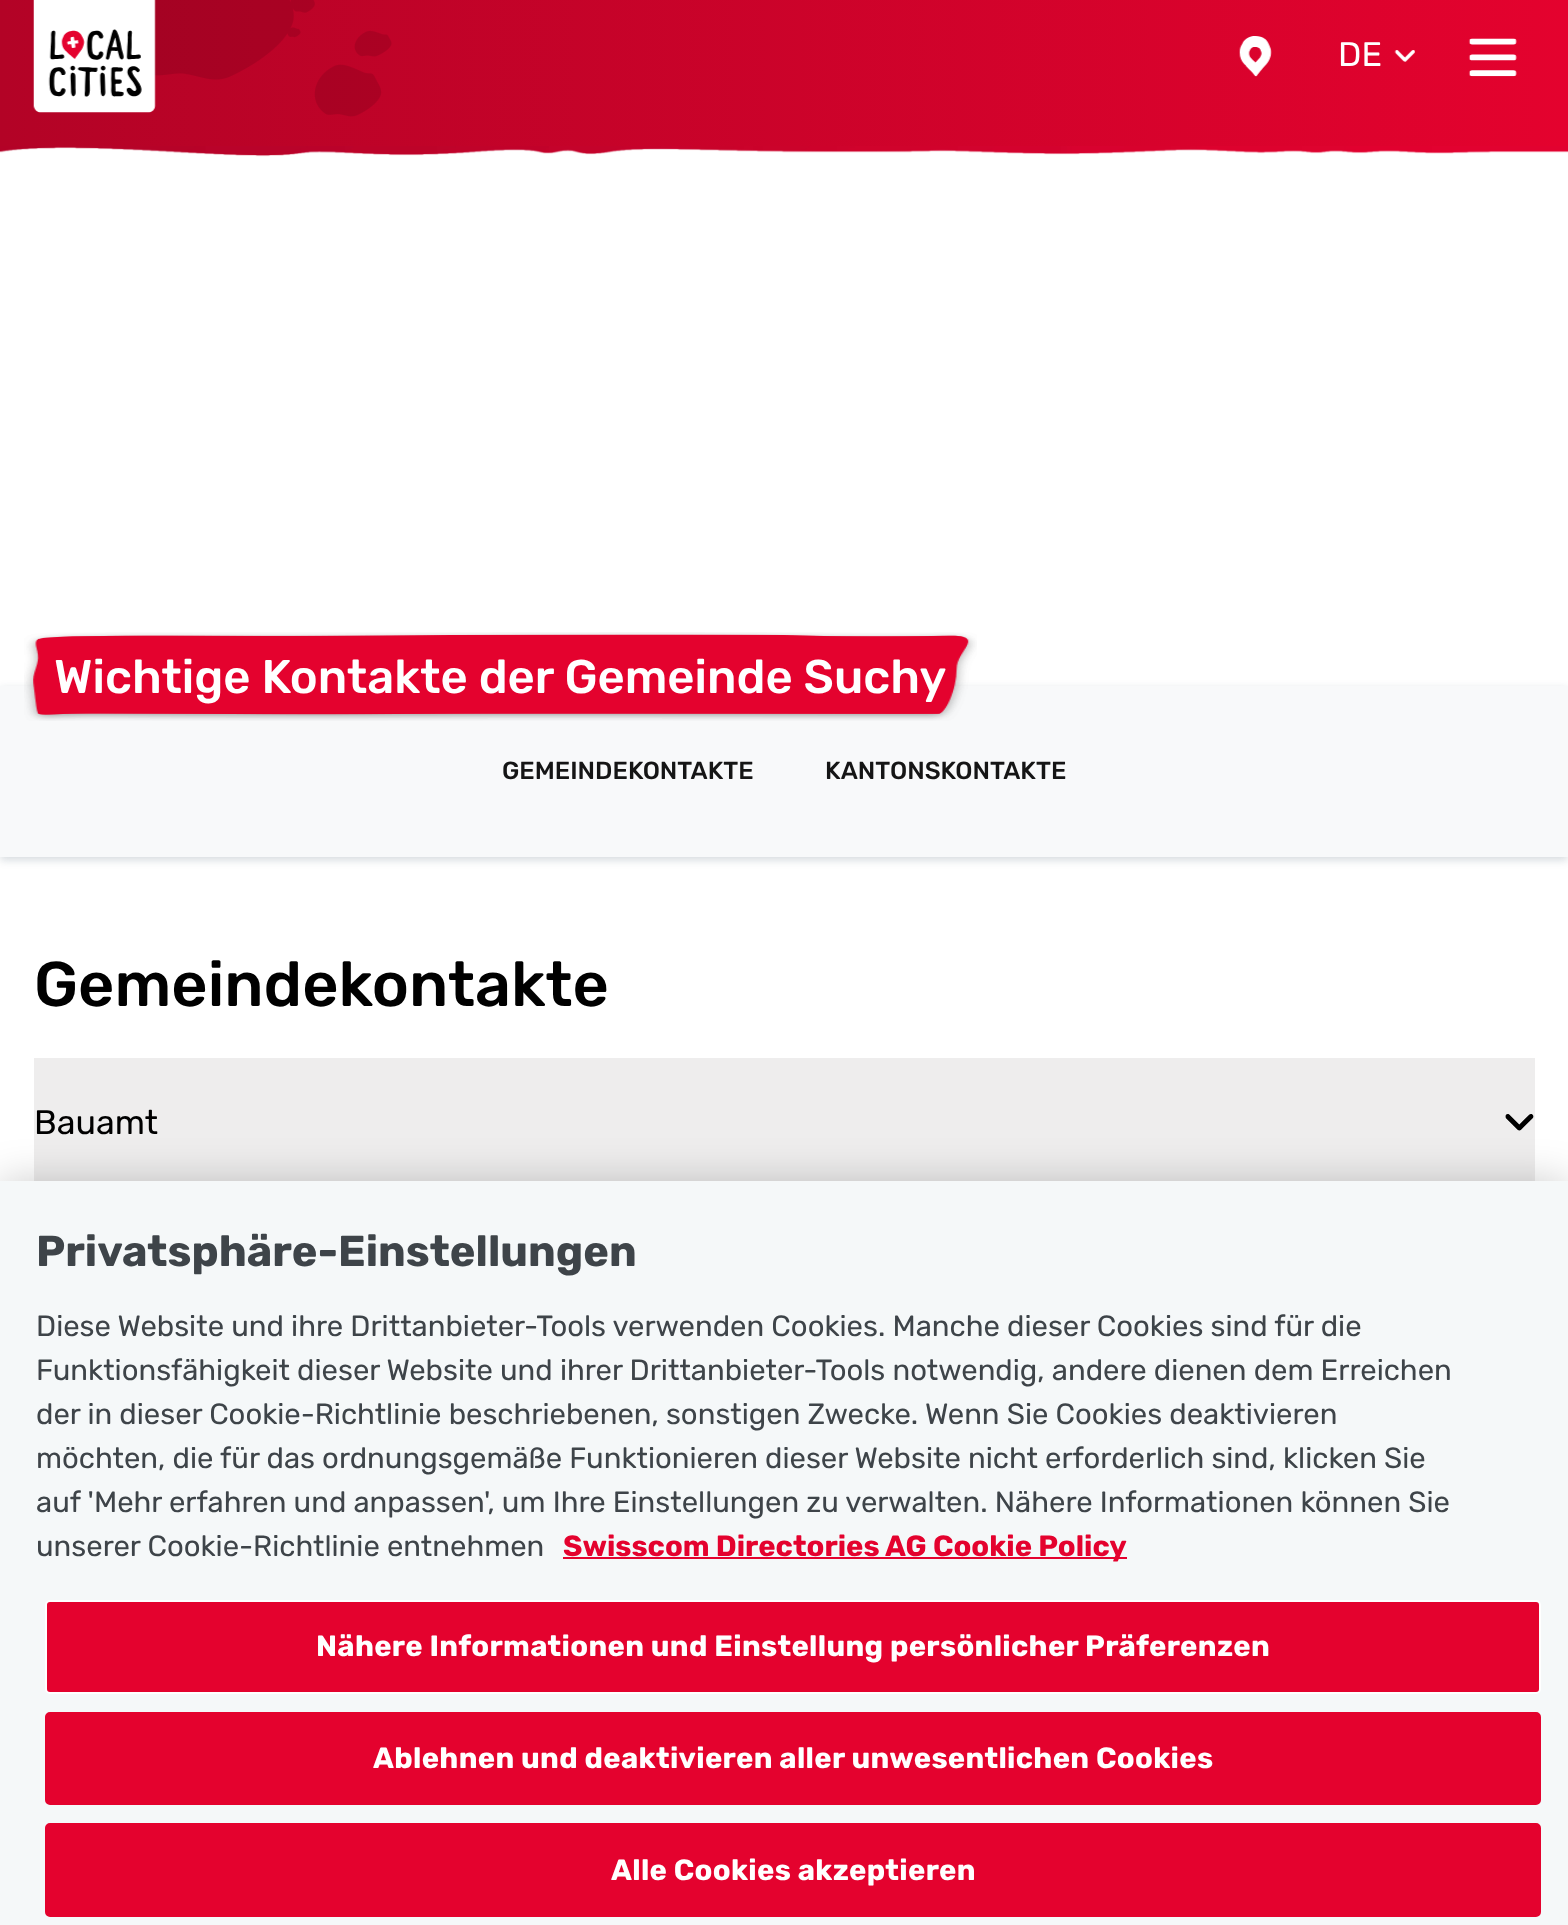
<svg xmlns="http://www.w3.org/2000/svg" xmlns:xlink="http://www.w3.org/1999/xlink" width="1568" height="1925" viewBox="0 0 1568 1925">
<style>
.cls-1{font:34px Rubik;fill:#ffffff}
.cls-2{font:500 47.25px Rubik;fill:#ffffff}
.cls-3{font:500 24.75px Rubik;fill:#151515}
.cls-4{font:500 63px Rubik;fill:#000000}
.cls-5{font:34px Rubik;fill:#000000}
.cls-6{font:bold 43.25px Rubik;fill:#3e4449}
.cls-7{font:29.25px Rubik;fill:#3e4449}
.cls-8{font:bold 29.25px Rubik;fill:#e4022e}
.cls-9{font:bold 29.25px Rubik;letter-spacing:0.3px;fill:#ffffff}
</style>
<defs>
<linearGradient id="g1" gradientUnits="userSpaceOnUse" x1="0" y1="73" x2="1568" y2="73"><stop offset="0" stop-color="#b30326"/><stop offset="1" stop-color="#e4022e"/></linearGradient>
</defs>
<rect width="100%" height="100%" fill="#ffffff"/>
<rect fill="url(#g1)" x="0" y="0" width="1568" height="146"/>
<image xlink:href="image0.png" x="154" y="0" width="238" height="117"/>
<image xlink:href="image1.png" x="33" y="0" width="123" height="113"/>
<image xlink:href="image2.png" x="1239" y="36" width="33" height="41"/>
<image xlink:href="image3.png" x="1394" y="50" width="21" height="12"/>
<image xlink:href="image4.png" x="1468" y="38" width="49" height="39"/>
<image xlink:href="image5.png" x="0" y="146" width="1568" height="11"/>
<rect fill="#072539" fill-opacity="0.17" filter="blur(4.5px)" x="0" y="689" width="1568" height="171"/>
<rect fill="#f8f9fa" x="0" y="686" width="1568" height="171"/>
<image xlink:href="image6.png" x="24" y="632" width="953" height="89"/>
<rect fill="#eeeded" x="34" y="1058" width="1501" height="123"/>
<image xlink:href="image7.png" x="1505" y="1114" width="29" height="17"/>
<rect fill="#000000" fill-opacity="0.2" filter="blur(20px)" x="0" y="1181" width="1568" height="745"/>
<rect fill="#f5f8f9" x="0" y="1181" width="1568" height="744"/>
<rect fill="#e4022e" x="563" y="1557" width="564" height="2"/>
<rect fill="#e4022e" stroke="#ffffff" stroke-width="2" x="46" y="1601" width="1494" height="92" rx="4"/>
<rect fill="#e4022e" stroke="#e4022e" stroke-width="2" x="46" y="1713" width="1494" height="91" rx="4"/>
<rect fill="#e4022e" stroke="#e4022e" stroke-width="2" x="46" y="1824" width="1494" height="92" rx="4"/>
<text class="cls-1" x="1338" y="66">DE</text>
<text class="cls-2" x="54" y="693">Wichtige Kontakte der Gemeinde Suchy</text>
<text class="cls-3" x="502" y="779">GEMEINDEKONTAKTE</text>
<text class="cls-3" x="825" y="779">KANTONSKONTAKTE</text>
<text class="cls-4" x="34" y="1006">Gemeindekontakte</text>
<text class="cls-5" x="34" y="1134">Bauamt</text>
<text class="cls-6" x="36" y="1266">Privatsphäre-Einstellungen</text>
<text class="cls-7"><tspan x="36" y="1336">Diese Website und ihre Drittanbieter-Tools verwenden Cookies. Manche dieser Cookies sind für die</tspan><tspan x="36" y="1380">Funktionsfähigkeit dieser Website und ihrer Drittanbieter-Tools notwendig, andere dienen dem Erreichen</tspan><tspan x="36" y="1424">der in dieser Cookie-Richtlinie beschriebenen, sonstigen Zwecke. Wenn Sie Cookies deaktivieren</tspan><tspan x="36" y="1468">möchten, die für das ordnungsgemäße Funktionieren dieser Website nicht erforderlich sind, klicken Sie</tspan><tspan x="36" y="1512">auf 'Mehr erfahren und anpassen', um Ihre Einstellungen zu verwalten. Nähere Informationen können Sie</tspan><tspan x="36" y="1556">unserer Cookie-Richtlinie entnehmen</tspan></text>
<text class="cls-8" x="563" y="1556">Swisscom Directories AG Cookie Policy</text>
<text class="cls-9" x="316" y="1656">Nähere Informationen und Einstellung persönlicher Präferenzen</text>
<text class="cls-9" x="373" y="1768">Ablehnen und deaktivieren aller unwesentlichen Cookies</text>
<text class="cls-9" x="611" y="1880">Alle Cookies akzeptieren</text>
</svg>
